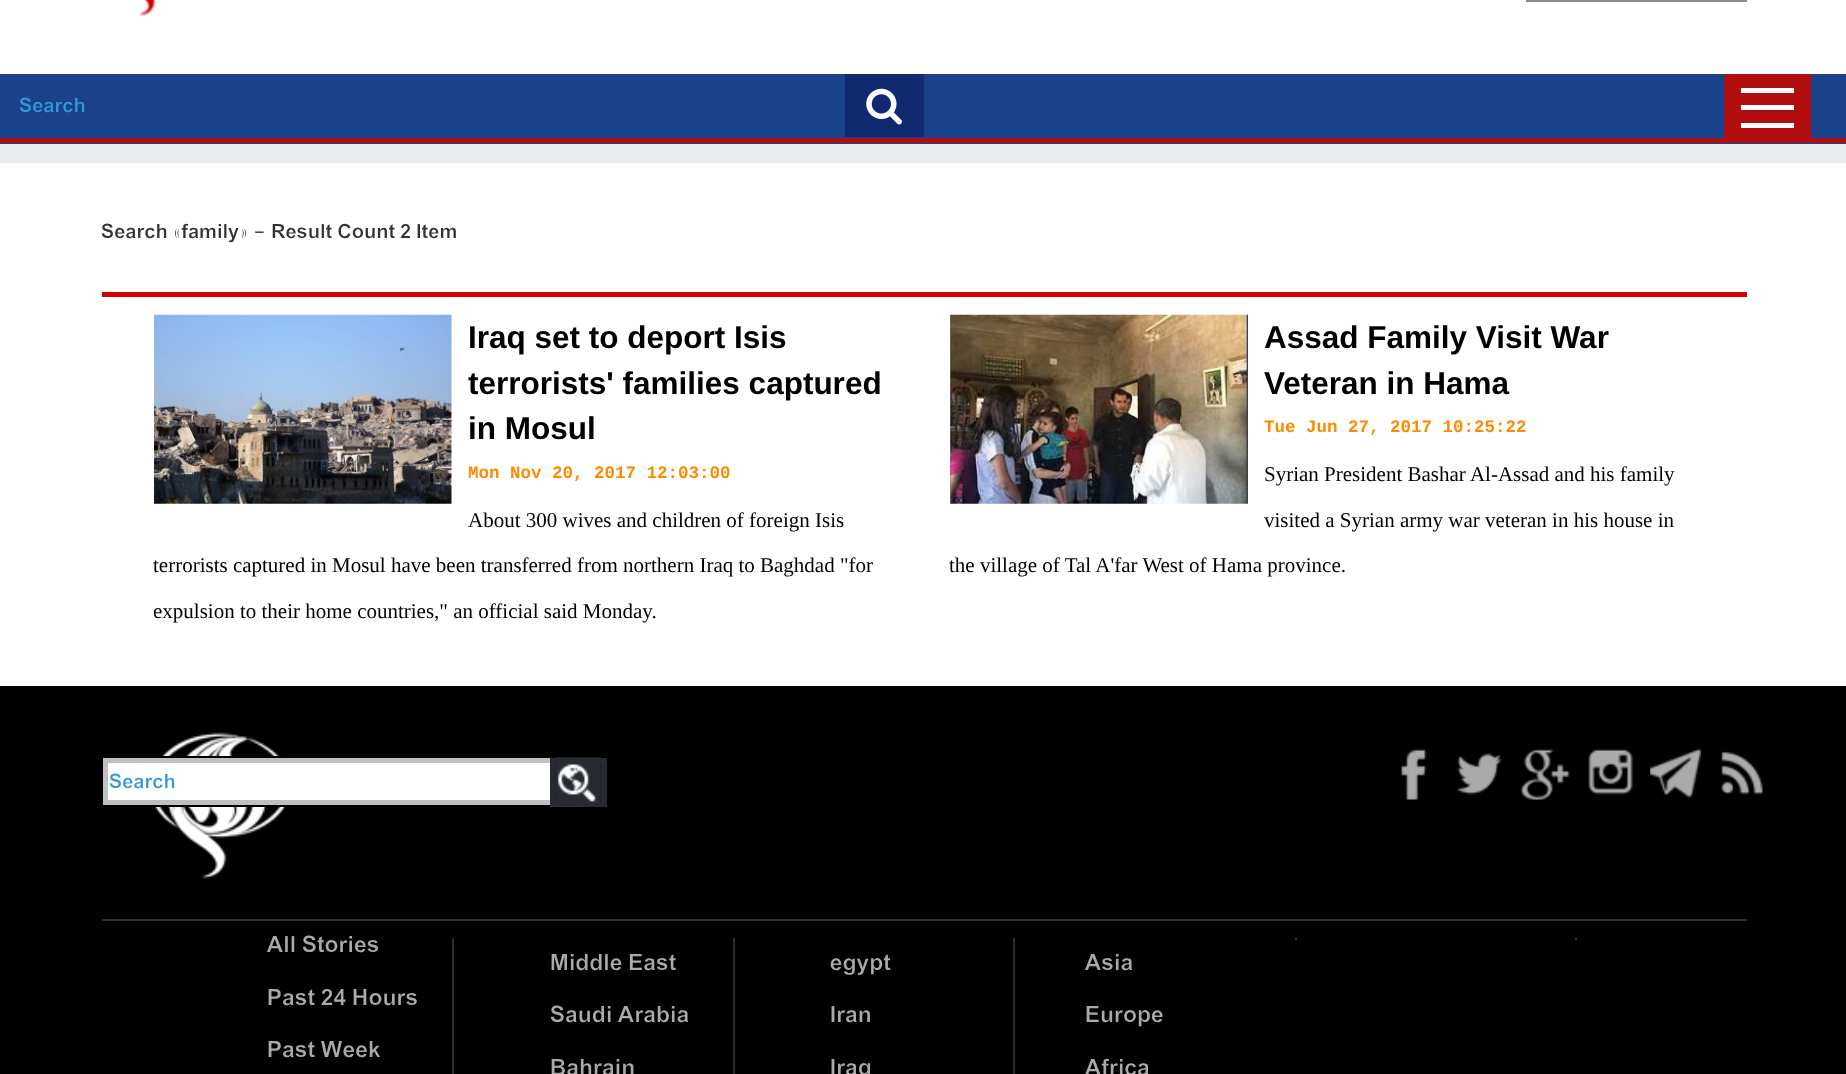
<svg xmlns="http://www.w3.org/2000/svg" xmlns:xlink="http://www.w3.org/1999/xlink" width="1846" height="1074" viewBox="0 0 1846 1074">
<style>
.cls-1{font:300 24.5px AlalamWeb;fill:#3498db}
.cls-2{font:300 24.5px AlalamWeb;fill:#333333}
.cls-3{font:bold 31.5px Liberation Sans;fill:#000000}
.cls-4{font:bold 17.5px Liberation Mono;fill:#ff8a00}
.cls-5{font:21px Liberation Serif;fill:#000000}
.cls-6{font:300 28px AlalamWeb;fill:#aaaaaa}
</style>
<rect width="100%" height="100%" fill="#ffffff"/>
<rect fill="#e9ebec" x="0" y="144" width="1846" height="19"/>
<image xlink:href="image0.png" x="138" y="0" width="19" height="17"/>
<rect fill="#8c8c8c" x="1526" y="0" width="221" height="2"/>
<rect fill="#1a428a" x="0" y="74" width="1846" height="70"/>
<rect fill="#b10f0f" x="0" y="138" width="1846" height="5"/>
<rect fill="#112971" x="845" y="74" width="79" height="63"/>
<image xlink:href="image1.png" x="866" y="88" width="36" height="37"/>
<rect fill="#b10f0f" x="1724" y="74" width="87" height="64"/>
<rect fill="#ffffff" x="1741" y="105" width="53" height="5"/>
<rect fill="#ffffff" x="1741" y="88" width="53" height="5"/>
<rect fill="#ffffff" x="1741" y="123" width="53" height="5"/>
<rect fill="#d20000" x="102" y="292" width="1645" height="5"/>
<image xlink:href="image2.png" x="154" y="314" width="298" height="190"/>
<image xlink:href="image3.png" x="950" y="314" width="298" height="190"/>
<rect fill="#000000" x="0" y="686" width="1846" height="388"/>
<image xlink:href="image5.png" x="148" y="732" width="145" height="147"/>
<rect fill="none" stroke="#000000" stroke-width="2" x="103" y="757" width="505" height="49" rx="3"/>
<rect fill="#ffffff" stroke="#c0c0c0" stroke-width="5" x="105.5" y="760.5" width="447" height="42"/>
<image xlink:href="image4.png" x="554" y="757" width="49" height="45"/>
<rect fill="none" stroke="#272a31" stroke-width="5" x="552.5" y="760.5" width="52" height="44"/>
<image xlink:href="image6.png" x="1400" y="748" width="27" height="52"/>
<image xlink:href="image7.png" x="1456" y="753" width="46" height="42"/>
<image xlink:href="image8.png" x="1520" y="748" width="50" height="52"/>
<image xlink:href="image9.png" x="1588" y="748" width="46" height="47"/>
<image xlink:href="image10.png" x="1650" y="748" width="51" height="51"/>
<image xlink:href="image11.png" x="1721" y="751" width="42" height="44"/>
<rect fill="#2f2e2e" x="102" y="919" width="1645" height="2"/>
<rect fill="#2f2e2e" x="1295" y="938" width="2" height="2"/>
<rect fill="#2f2e2e" x="1575" y="938" width="2" height="2"/>
<rect fill="#2f2e2e" x="452" y="938" width="2" height="136"/>
<rect fill="#2f2e2e" x="733" y="938" width="2" height="136"/>
<rect fill="#2f2e2e" x="1013" y="938" width="2" height="136"/>
<text class="cls-1" x="19" y="112">Search</text>
<text class="cls-2" x="101" y="238">Search «family» - Result Count 2 Item</text>
<text class="cls-3"><tspan x="468" y="348">Iraq set to deport Isis</tspan><tspan x="468" y="394">terrorists' families captured</tspan><tspan x="468" y="439">in Mosul</tspan></text>
<text class="cls-4" x="468" y="478">Mon Nov 20, 2017 12:03:00</text>
<text class="cls-5" x="468" y="527">About 300 wives and children of foreign Isis</text>
<text class="cls-5" x="153" y="572">terrorists captured in Mosul have been transferred from northern Iraq to Baghdad "for</text>
<text class="cls-5" x="153" y="618">expulsion to their home countries," an official said Monday.</text>
<text class="cls-3"><tspan x="1264" y="348">Assad Family Visit War</tspan><tspan x="1264" y="394">Veteran in Hama</tspan></text>
<text class="cls-4" x="1264" y="432">Tue Jun 27, 2017 10:25:22</text>
<text class="cls-5" x="1264" y="481">Syrian President Bashar Al-Assad and his family</text>
<text class="cls-5" x="1264" y="527">visited a Syrian army war veteran in his house in</text>
<text class="cls-5" x="949" y="572">the village of Tal A'far West of Hama province.</text>
<text class="cls-1" x="109" y="788">Search</text>
<text class="cls-6"><tspan x="267" y="952">All Stories</tspan><tspan x="267" y="1005">Past 24 Hours</tspan><tspan x="267" y="1057">Past Week</tspan></text>
<text class="cls-6"><tspan x="550" y="970">Middle East</tspan><tspan x="550" y="1022">Saudi Arabia</tspan><tspan x="550" y="1075">Bahrain</tspan></text>
<text class="cls-6"><tspan x="830" y="970">egypt</tspan><tspan x="830" y="1022">Iran</tspan><tspan x="830" y="1075">Iraq</tspan></text>
<text class="cls-6"><tspan x="1085" y="970">Asia</tspan><tspan x="1085" y="1022">Europe</tspan><tspan x="1085" y="1075">Africa</tspan></text>
</svg>
